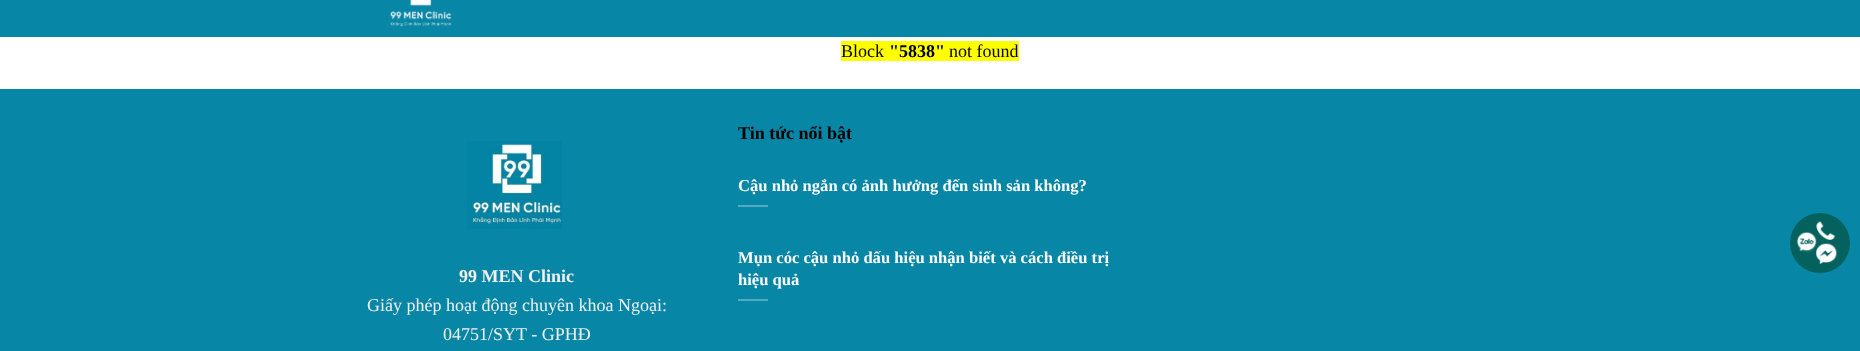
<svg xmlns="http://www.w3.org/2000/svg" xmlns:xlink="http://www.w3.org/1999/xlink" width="1860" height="351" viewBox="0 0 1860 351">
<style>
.cls-1{font:18px Liberation Serif;fill:#000000}
.cls-2{font:bold 18px Liberation Serif;fill:#000000}
.cls-3{font:bold 16.6px Liberation Serif;fill:#ffffff}
.cls-4{font:bold 18px Liberation Serif;fill:#f1f1f1}
.cls-5{font:18px Liberation Serif;fill:#f1f1f1}
</style>
<rect width="100%" height="100%" fill="#ffffff"/>
<rect fill="#0786a5" x="0" y="0" width="1860" height="37"/>
<image xlink:href="image0.png" x="390" y="0" width="62" height="27"/>
<rect fill="#ffff00" x="841" y="41" width="178" height="20"/>
<rect fill="#0786a5" x="0" y="89" width="1860" height="262"/>
<rect fill="#51aac0" x="738" y="205" width="30" height="2"/>
<rect fill="#51aac0" x="738" y="299" width="30" height="2"/>
<image xlink:href="image1.png" x="467" y="141" width="95" height="88"/>
<circle fill="#03615e" cx="1820" cy="243" r="30"/>
<image xlink:href="image2.png" x="1796" y="221" width="41" height="43"/>
<text class="cls-1" x="841" y="57">Block</text>
<text class="cls-2" x="889" y="57">"5838"</text>
<text class="cls-1" x="949" y="57">not found</text>
<text class="cls-2" x="738" y="139">Tin tức nổi bật</text>
<text class="cls-3" x="738" y="191">Cậu nhỏ ngắn có ảnh hưởng đến sinh sản không?</text>
<text class="cls-3"><tspan x="738" y="263">Mụn cóc cậu nhỏ dấu hiệu nhận biết và cách điều trị</tspan><tspan x="738" y="285">hiệu quả</tspan></text>
<text class="cls-4" x="459" y="282">99 MEN Clinic</text>
<text class="cls-5" x="367" y="311">Giấy phép hoạt động chuyên khoa Ngoại:</text>
<text class="cls-5" x="443" y="340">04751/SYT - GPHĐ</text>
</svg>
